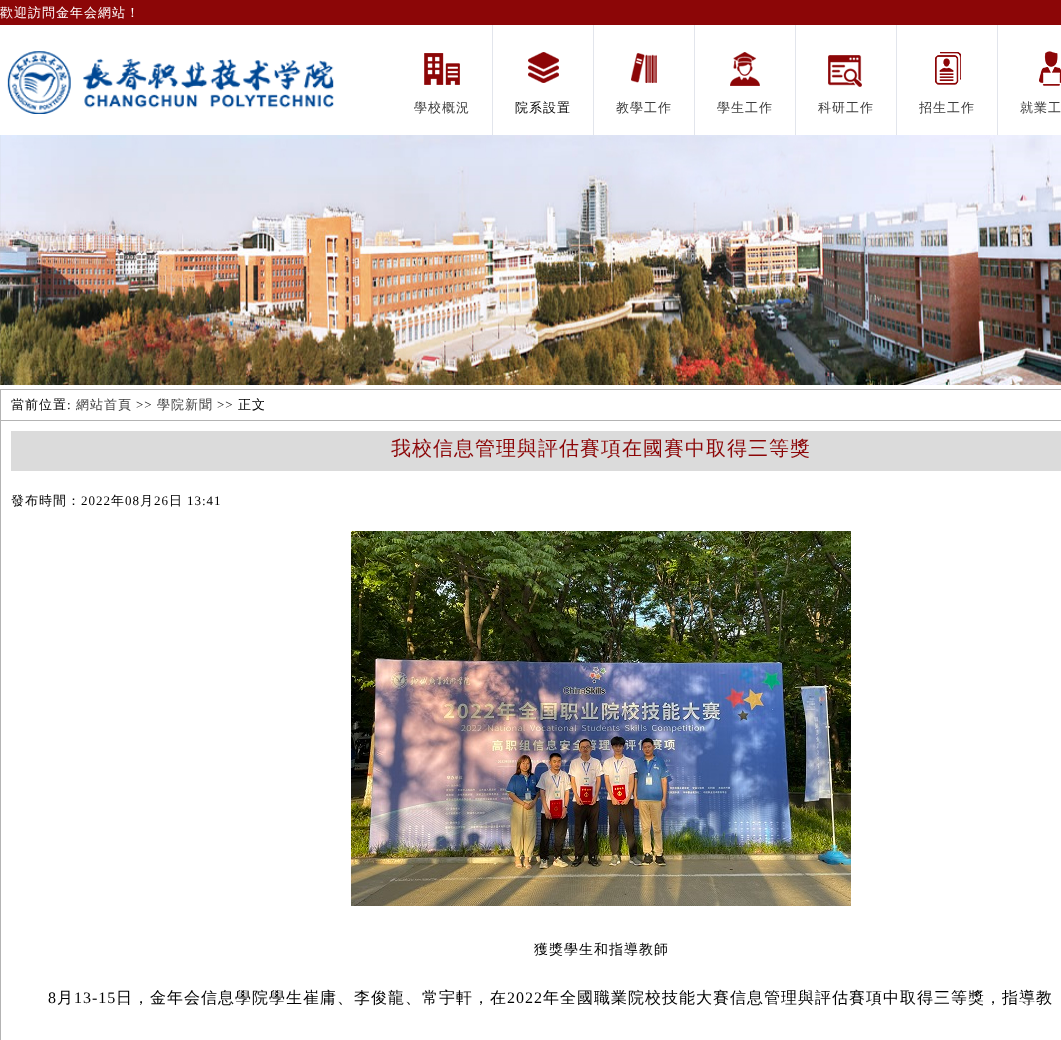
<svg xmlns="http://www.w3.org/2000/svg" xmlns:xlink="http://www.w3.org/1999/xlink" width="1061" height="1040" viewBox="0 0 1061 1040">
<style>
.cls-1{font:500 13px WenQuanYi Zen Hei;letter-spacing:1px;fill:#ffffff}
.cls-2{font:500 13px WenQuanYi Zen Hei;letter-spacing:1px;fill:#3c3c3c}
.cls-3{font:500 13px WenQuanYi Zen Hei;letter-spacing:1px;fill:#000000}
.cls-4{font:13px Liberation Serif;letter-spacing:1px;fill:#000000}
.cls-5{font:500 20px WenQuanYi Zen Hei;letter-spacing:1px;fill:#8c0607}
.cls-6{font:500 14px WenQuanYi Zen Hei;letter-spacing:1px;fill:#000000}
.cls-7{font:16px Liberation Serif;letter-spacing:1px;fill:#000000}
.cls-8{font:500 16px WenQuanYi Zen Hei;letter-spacing:1px;fill:#000000}
</style>
<rect width="100%" height="100%" fill="#ffffff"/>
<rect fill="#8c0607" x="0" y="0" width="1061" height="25"/>
<image xlink:href="image0.png" x="7" y="51" width="327" height="63"/>
<image xlink:href="image1.png" x="424" y="53" width="36" height="32"/>
<rect fill="#e2e5ec" x="492" y="25" width="1" height="110"/>
<image xlink:href="image2.png" x="528" y="52" width="31" height="31"/>
<rect fill="#e2e5ec" x="593" y="25" width="1" height="110"/>
<image xlink:href="image3.png" x="631" y="53" width="26" height="30"/>
<rect fill="#e2e5ec" x="694" y="25" width="1" height="110"/>
<image xlink:href="image4.png" x="730" y="52" width="30" height="34"/>
<rect fill="#e2e5ec" x="795" y="25" width="1" height="110"/>
<image xlink:href="image5.png" x="828" y="55" width="34" height="32"/>
<rect fill="#e2e5ec" x="896" y="25" width="1" height="110"/>
<image xlink:href="image6.png" x="935" y="52" width="26" height="33"/>
<rect fill="#e2e5ec" x="997" y="25" width="1" height="110"/>
<image xlink:href="image7.png" x="1039" y="51" width="22" height="35"/>
<image xlink:href="image8.png" x="0" y="135" width="1061" height="250"/>
<rect fill="none" stroke="#b3b3b3" x="0.5" y="389.5" width="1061" height="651"/>
<rect fill="#b3b3b3" x="1" y="420" width="1060" height="1"/>
<rect fill="#dbdbdb" x="11" y="431" width="1050" height="40"/>
<image xlink:href="image9.png" x="351" y="531" width="500" height="375"/>
<text class="cls-1" x="0" y="17">歡迎訪問金年会網站！</text>
<text class="cls-2" x="414" y="112">學校概況</text>
<text class="cls-3" x="515" y="112">院系設置</text>
<text class="cls-2" x="616" y="112">教學工作</text>
<text class="cls-2" x="717" y="112">學生工作</text>
<text class="cls-2" x="818" y="112">科研工作</text>
<text class="cls-2" x="919" y="112">招生工作</text>
<text class="cls-2" x="1020" y="112">就業工</text>
<text class="cls-3" x="11" y="409">當前位置</text>
<text class="cls-4" x="67" y="409">:</text>
<text class="cls-2" x="76" y="409">網站首頁</text>
<text class="cls-4" x="136" y="409">&gt;&gt;</text>
<text class="cls-2" x="157" y="409">學院新聞</text>
<text class="cls-4" x="217" y="409">&gt;&gt;</text>
<text class="cls-3" x="238" y="409">正文</text>
<text class="cls-5" x="391" y="455">我校信息管理與評估賽項在國賽中取得三等獎</text>
<text class="cls-3" x="11" y="505">發布時間：</text>
<text class="cls-4" x="81" y="505">2022</text>
<text class="cls-3" x="111" y="505">年</text>
<text class="cls-4" x="125" y="505">08</text>
<text class="cls-3" x="140" y="505">月</text>
<text class="cls-4" x="154" y="505">26</text>
<text class="cls-3" x="169" y="505">日</text>
<text class="cls-4" x="187" y="505">13:41</text>
<text class="cls-6" x="534" y="954">獲獎學生和指導教師</text>
<text class="cls-7" x="48" y="1003">8</text>
<text class="cls-8" x="57" y="1003">月</text>
<text class="cls-7" x="74" y="1003">13-15</text>
<text class="cls-8" x="116" y="1003">日，金年会信息學院學生崔庸、李俊龍、常宇軒，在</text>
<text class="cls-7" x="507" y="1003">2022</text>
<text class="cls-8" x="543" y="1003">年全國職業院校技能大賽信息管理與評估賽項中取得三等獎，指導教</text>
</svg>
